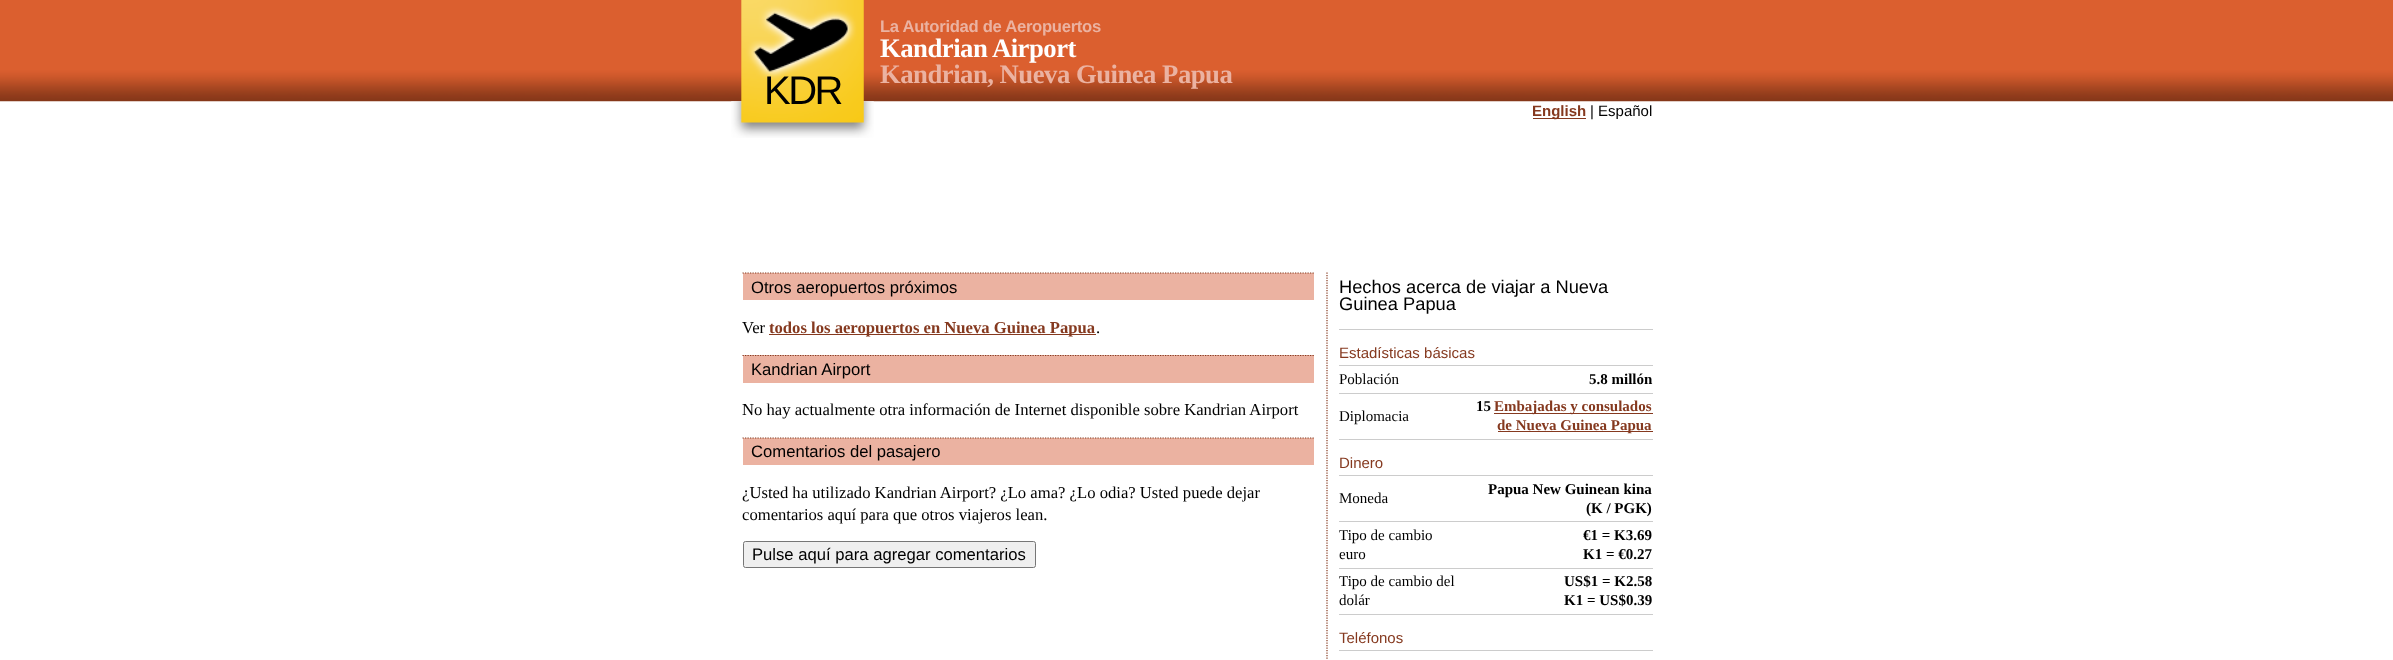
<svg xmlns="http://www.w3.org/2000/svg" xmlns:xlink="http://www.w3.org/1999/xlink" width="2393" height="660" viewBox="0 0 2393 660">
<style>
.cls-1{font:40px Liberation Sans;letter-spacing:-2.5px;fill:#000000}
.cls-2{font:bold 16.65px Liberation Sans;letter-spacing:-0.3px;fill:#ebb2a1}
.cls-3{font:bold 26.7px Liberation Serif;letter-spacing:-0.5px;fill:#ffffff}
.cls-4{font:bold 26.7px Liberation Serif;letter-spacing:-0.5px;fill:#ebb2a1}
.cls-5{font:bold 15px Liberation Sans;fill:#85391f}
.cls-6{font:15px Liberation Sans;fill:#000000}
.cls-7{font:16.65px Liberation Sans;fill:#000000}
.cls-8{font:16.65px Liberation Serif;fill:#000000}
.cls-9{font:bold 16.65px Liberation Serif;fill:#85391f}
.cls-10{font:18.3px Liberation Sans;fill:#000000}
.cls-11{font:15px Liberation Sans;fill:#85391f}
.cls-12{font:15px Liberation Serif;fill:#000000}
.cls-13{font:bold 15px Liberation Serif;fill:#000000}
.cls-14{font:bold 15px Liberation Serif;fill:#85391f}
</style>
<rect width="100%" height="100%" fill="#ffffff"/>
<image xlink:href="image0.png" x="0" y="0" width="2393" height="102"/>
<image xlink:href="image1.png" x="731" y="0" width="143" height="138"/>
<rect fill="#85391f" x="1533" y="118" width="53" height="1"/>
<rect fill="#ebb2a1" x="743" y="273" width="571" height="27"/>
<path fill="none" stroke="#85391f" stroke-width="1.2" stroke-dasharray="1.25 1.25" d="M742.5 273H1314"/>
<rect fill="#85391f" x="769" y="334" width="327" height="1"/>
<rect fill="#ebb2a1" x="743" y="355" width="571" height="28"/>
<path fill="none" stroke="#85391f" stroke-width="1.2" stroke-dasharray="1.25 1.25" d="M742.5 355.5H1314"/>
<rect fill="#ebb2a1" x="743" y="438" width="571" height="27"/>
<path fill="none" stroke="#85391f" stroke-width="1.2" stroke-dasharray="1.25 1.25" d="M742.5 438H1314"/>
<rect fill="#efefef" stroke="#767676" x="743.5" y="541.5" width="292" height="26" rx="2"/>
<path fill="none" stroke="#85391f" stroke-width="1.2" stroke-dasharray="1.25 1.25" d="M1327 272.5V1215"/>
<rect fill="#cccccc" x="1339" y="329" width="314" height="1"/>
<rect fill="#cccccc" x="1339" y="365" width="314" height="1"/>
<rect fill="#cccccc" x="1339" y="393" width="314" height="1"/>
<rect fill="#85391f" x="1494" y="413" width="159" height="1"/>
<rect fill="#85391f" x="1498" y="431" width="155" height="1"/>
<rect fill="#cccccc" x="1339" y="439" width="314" height="1"/>
<rect fill="#cccccc" x="1339" y="475" width="314" height="1"/>
<rect fill="#cccccc" x="1339" y="521" width="314" height="1"/>
<rect fill="#cccccc" x="1339" y="568" width="314" height="1"/>
<rect fill="#cccccc" x="1339" y="614" width="314" height="1"/>
<rect fill="#cccccc" x="1339" y="650" width="314" height="1"/>
<text class="cls-1" x="764" y="104">KDR</text>
<text class="cls-2" x="880" y="32">La Autoridad de Aeropuertos</text>
<text class="cls-3" x="880" y="57">Kandrian Airport</text>
<text class="cls-4" x="880" y="83">Kandrian, Nueva Guinea Papua</text>
<text class="cls-5" x="1532" y="116">English</text>
<text class="cls-6" x="1590" y="116">| Español</text>
<text class="cls-7" x="751" y="293">Otros aeropuertos próximos</text>
<text class="cls-8" x="742" y="333">Ver</text>
<text class="cls-9" x="769" y="333">todos los aeropuertos en Nueva Guinea Papua</text>
<text class="cls-8" x="1096" y="333">.</text>
<text class="cls-7" x="751" y="375">Kandrian Airport</text>
<text class="cls-8" x="742" y="415">No hay actualmente otra información de Internet disponible sobre Kandrian Airport</text>
<text class="cls-7" x="751" y="457">Comentarios del pasajero</text>
<text class="cls-8"><tspan x="742" y="498">¿Usted ha utilizado Kandrian Airport? ¿Lo ama? ¿Lo odia? Usted puede dejar</tspan><tspan x="742" y="520">comentarios aquí para que otros viajeros lean.</tspan></text>
<text class="cls-7" x="752" y="560">Pulse aquí para agregar comentarios</text>
<text class="cls-10"><tspan x="1339" y="293">Hechos acerca de viajar a Nueva</tspan><tspan x="1339" y="310">Guinea Papua</tspan></text>
<text class="cls-11" x="1339" y="358">Estadísticas básicas</text>
<text class="cls-12" x="1339" y="384">Población</text>
<text class="cls-13" x="1589" y="384">5.8 millón</text>
<text class="cls-12" x="1339" y="421">Diplomacia</text>
<text class="cls-13" x="1476" y="411">15</text>
<text class="cls-14" x="1494" y="411">Embajadas y consulados</text>
<text class="cls-14" x="1497" y="430">de Nueva Guinea Papua</text>
<text class="cls-11" x="1339" y="468">Dinero</text>
<text class="cls-12" x="1339" y="503">Moneda</text>
<text class="cls-13" x="1488" y="494">Papua New Guinean kina</text>
<text class="cls-13" x="1586" y="513">(K / PGK)</text>
<text class="cls-12"><tspan x="1339" y="540">Tipo de cambio</tspan><tspan x="1339" y="559">euro</tspan></text>
<text class="cls-13"><tspan x="1583" y="540">€1 = K3.69</tspan><tspan x="1583" y="559">K1 = €0.27</tspan></text>
<text class="cls-12"><tspan x="1339" y="586">Tipo de cambio del</tspan><tspan x="1339" y="605">dolár</tspan></text>
<text class="cls-13"><tspan x="1564" y="586">US$1 = K2.58</tspan><tspan x="1564" y="605">K1 = US$0.39</tspan></text>
<text class="cls-11" x="1339" y="643">Teléfonos</text>
</svg>
